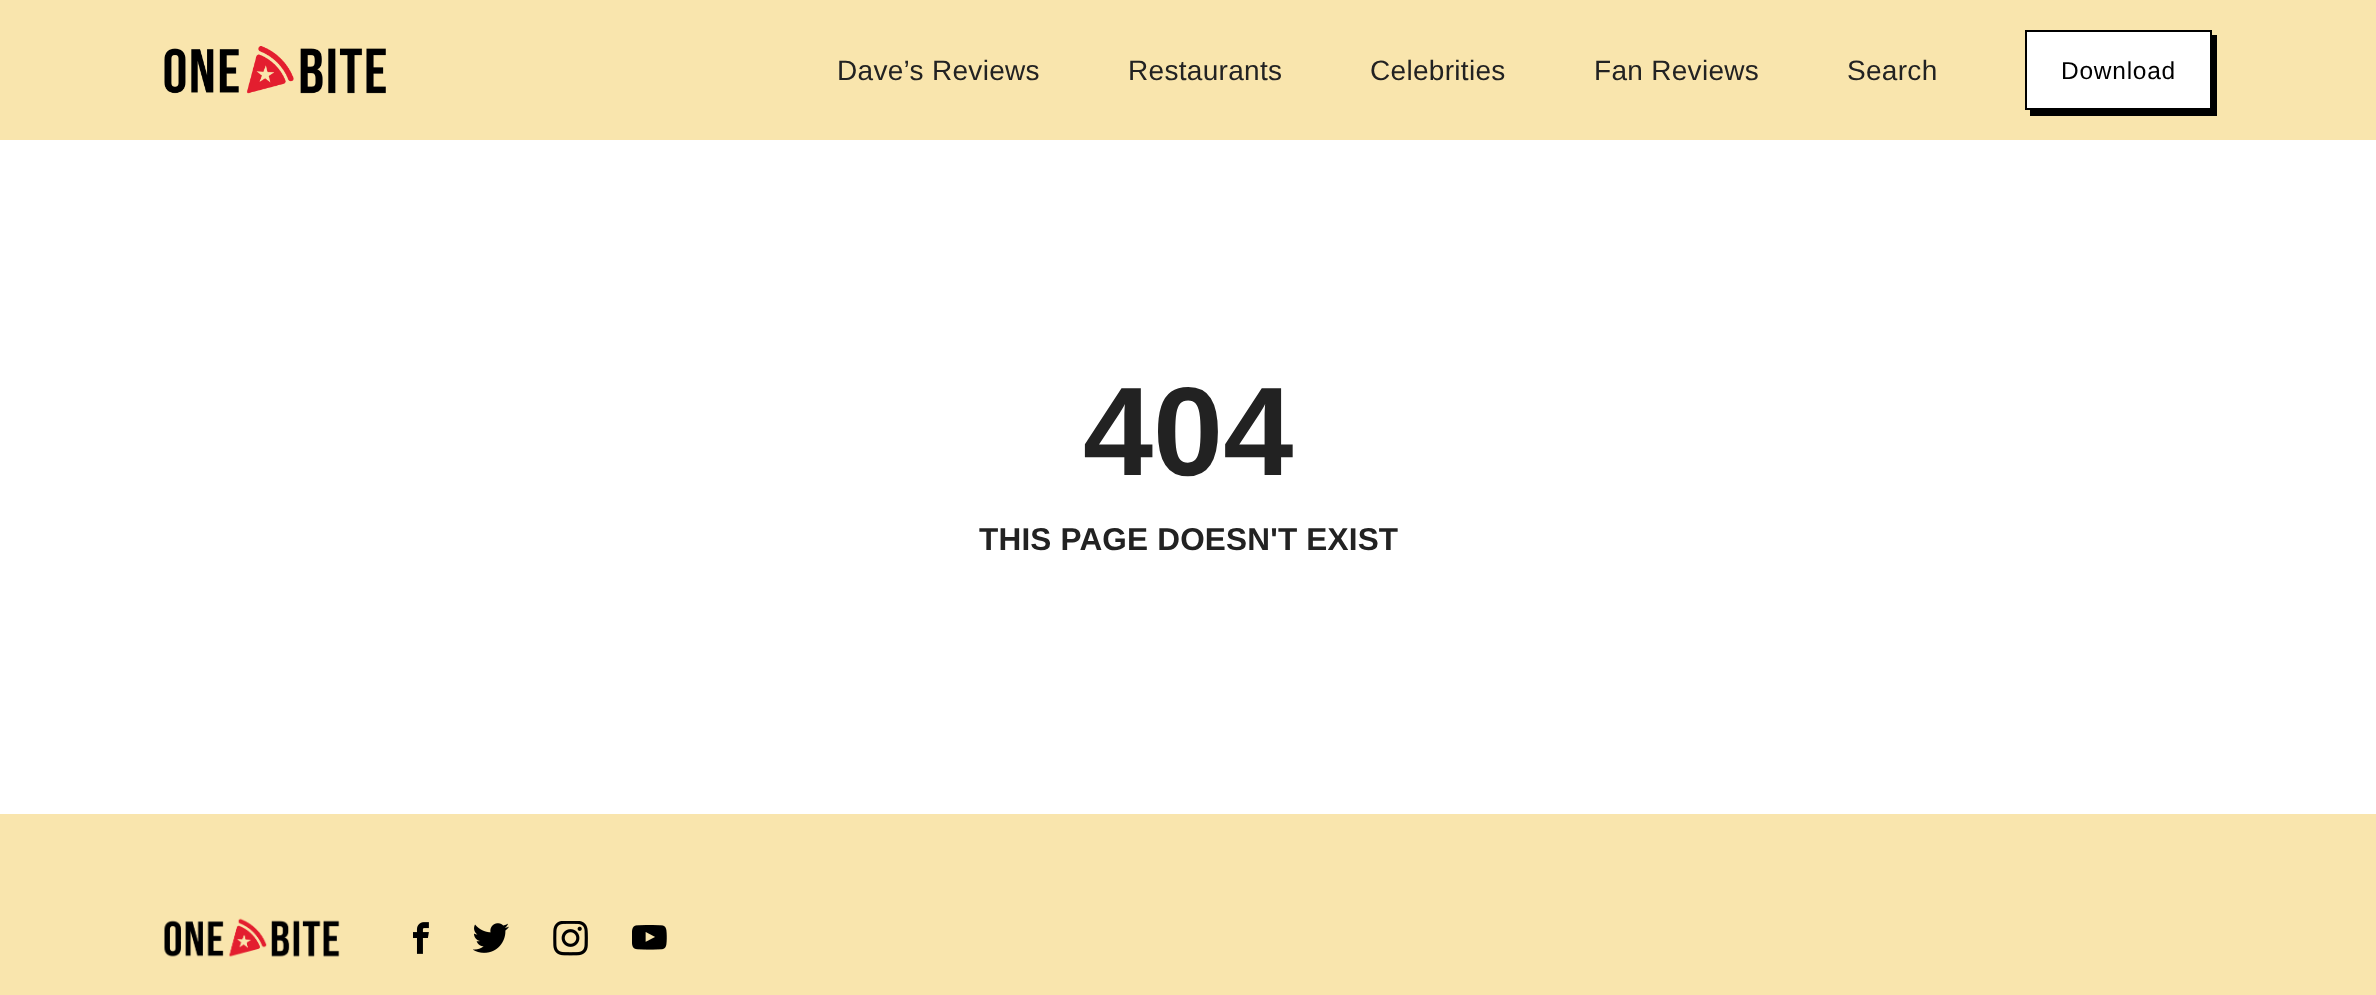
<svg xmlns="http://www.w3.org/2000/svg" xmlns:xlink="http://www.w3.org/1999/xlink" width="2376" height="995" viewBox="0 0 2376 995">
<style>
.cls-1{font:28px Liberation Sans;letter-spacing:0.3px;fill:#222222}
.cls-2{font:24.5px Liberation Sans;letter-spacing:0.75px;fill:#000000}
.cls-3{font:bold 126px Liberation Sans;fill:#222222}
.cls-4{font:bold 31.5px Liberation Sans;letter-spacing:0.2px;fill:#222222}
</style>
<rect width="100%" height="100%" fill="#ffffff"/>
<rect fill="#f9e5ad" x="0" y="0" width="2376" height="140"/>
<image xlink:href="image0.png" x="164" y="46" width="222" height="48"/>
<path fill="#000000" d="M2030 110V116H2217V35H2212V110Z"/>
<rect fill="#ffffff" stroke="#000000" stroke-width="2" x="2026" y="31" width="185" height="78"/>
<rect fill="#f9e5ad" x="0" y="814" width="2376" height="181"/>
<image xlink:href="image1.png" x="164" y="918" width="176" height="39"/>
<image xlink:href="image2.png" x="413" y="922" width="16" height="32"/>
<image xlink:href="image3.png" x="473" y="923" width="36" height="30"/>
<image xlink:href="image4.png" x="553" y="921" width="35" height="35"/>
<image xlink:href="image5.png" x="632" y="925" width="35" height="25"/>
<text class="cls-1" x="837" y="80">Dave’s Reviews</text>
<text class="cls-1" x="1128" y="80">Restaurants</text>
<text class="cls-1" x="1370" y="80">Celebrities</text>
<text class="cls-1" x="1594" y="80">Fan Reviews</text>
<text class="cls-1" x="1847" y="80">Search</text>
<text class="cls-2" x="2061" y="79">Download</text>
<text class="cls-3" x="1083" y="475">404</text>
<text class="cls-4" x="979" y="550">THIS PAGE DOESN'T EXIST</text>
</svg>
